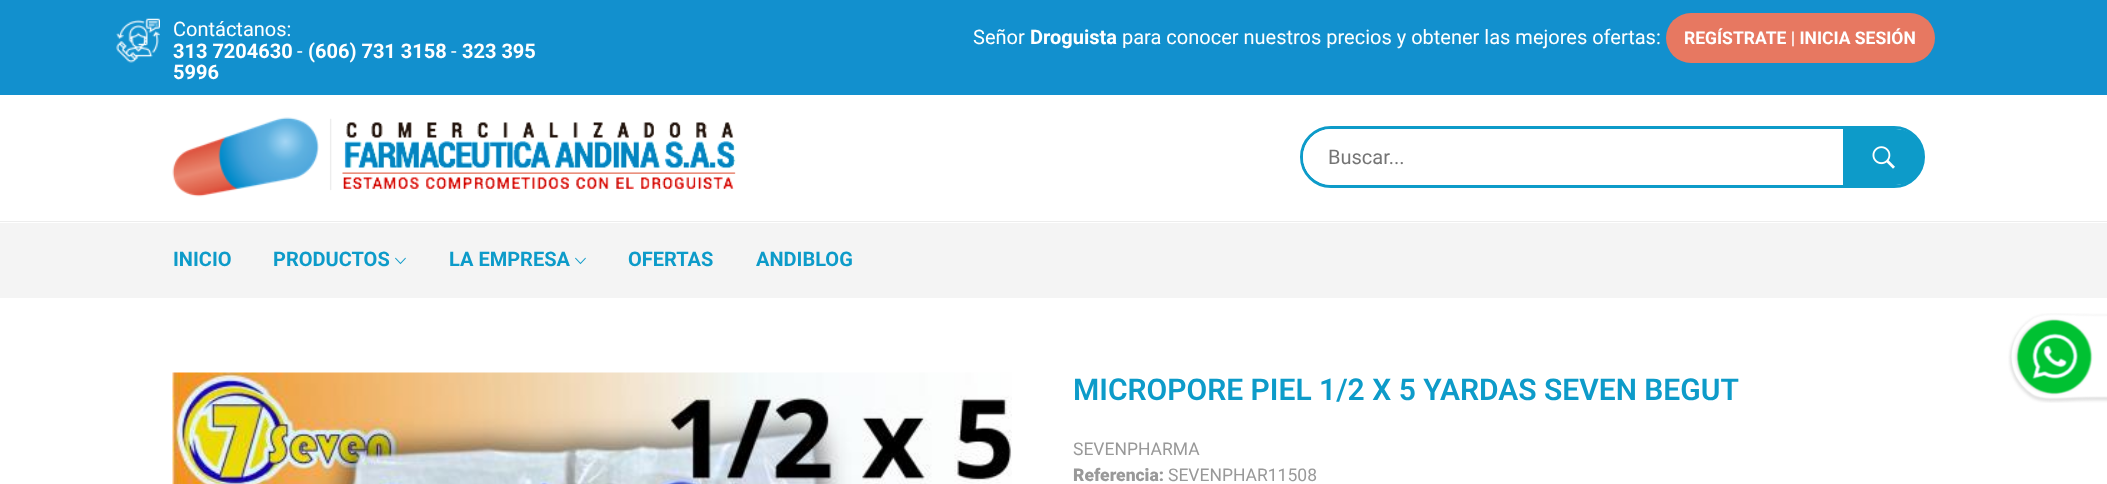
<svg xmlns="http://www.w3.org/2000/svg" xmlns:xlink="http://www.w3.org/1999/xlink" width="2107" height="484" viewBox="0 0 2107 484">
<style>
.cls-1{font:20px Roboto;fill:#ffffff}
.cls-2{font:bold 20px Roboto;fill:#ffffff}
.cls-3{font:bold 17.5px Roboto;fill:#ffffff}
.cls-4{font:20px Roboto;fill:#757575}
.cls-5{font:bold 20px Roboto;fill:#0d9bc9}
.cls-6{font:600 30px Roboto;fill:#0d9bc9}
.cls-7{font:17.5px Roboto;fill:#999999}
.cls-8{font:900 17.5px Roboto;fill:#999999}
</style>
<rect width="100%" height="100%" fill="#ffffff"/>
<rect fill="#1290ce" x="0" y="0" width="2107" height="95"/>
<image xlink:href="image0.png" x="116" y="18" width="44" height="45"/>
<rect fill="#e77861" x="1666" y="13" width="269" height="50" rx="25"/>
<rect fill="#ededed" x="0" y="221" width="2107" height="1"/>
<image xlink:href="image1.png" x="172" y="117" width="564" height="80"/>
<rect fill="none" stroke="#0d9bc9" stroke-width="3" x="1301.5" y="127.5" width="622" height="59" rx="29.5"/>
<rect fill="#ffffff" x="1303" y="129" width="620" height="56" rx="28"/>
<path fill="#0d9bc9" d="M1843 129H1896C1911.5 129 1924 141.5 1924 157C1924 172.5 1911.5 185 1896 185H1843Z"/>
<image xlink:href="image2.png" x="1872" y="146" width="23" height="23"/>
<rect fill="#f4f4f4" x="0" y="223" width="2107" height="75"/>
<image xlink:href="image3.png" x="395" y="257" width="11" height="8"/>
<image xlink:href="image3.png" x="575" y="257" width="11" height="8"/>
<image xlink:href="image4.png" x="2008" y="313" width="99" height="90"/>
<image xlink:href="image5.png" x="172" y="372" width="840" height="112"/>
<text class="cls-1" x="173" y="36">Contáctanos:</text>
<text class="cls-2" x="173" y="58">313 7204630</text>
<text class="cls-1" x="297" y="58">-</text>
<text class="cls-2" x="308" y="58">(606) 731 3158</text>
<text class="cls-1" x="451" y="58">-</text>
<text class="cls-2" x="462" y="58">323 395</text>
<text class="cls-2" x="173" y="79">5996</text>
<text class="cls-1" x="973" y="44">Señor</text>
<text class="cls-2" x="1030" y="44">Droguista</text>
<text class="cls-1" x="1122" y="44">para conocer nuestros precios y obtener las mejores ofertas:</text>
<text class="cls-3" x="1684" y="44">REGÍSTRATE | INICIA SESIÓN</text>
<text class="cls-4" x="1328" y="164">Buscar...</text>
<text class="cls-5" x="173" y="266">INICIO</text>
<text class="cls-5" x="273" y="266">PRODUCTOS</text>
<text class="cls-5" x="449" y="266">LA EMPRESA</text>
<text class="cls-5" x="628" y="266">OFERTAS</text>
<text class="cls-5" x="756" y="266">ANDIBLOG</text>
<text class="cls-6" x="1073" y="400">MICROPORE PIEL 1/2 X 5 YARDAS SEVEN BEGUT</text>
<text class="cls-7" x="1073" y="455">SEVENPHARMA</text>
<text class="cls-8" x="1073" y="481">Referencia:</text>
<text class="cls-7" x="1168" y="481">SEVENPHAR11508</text>
</svg>
